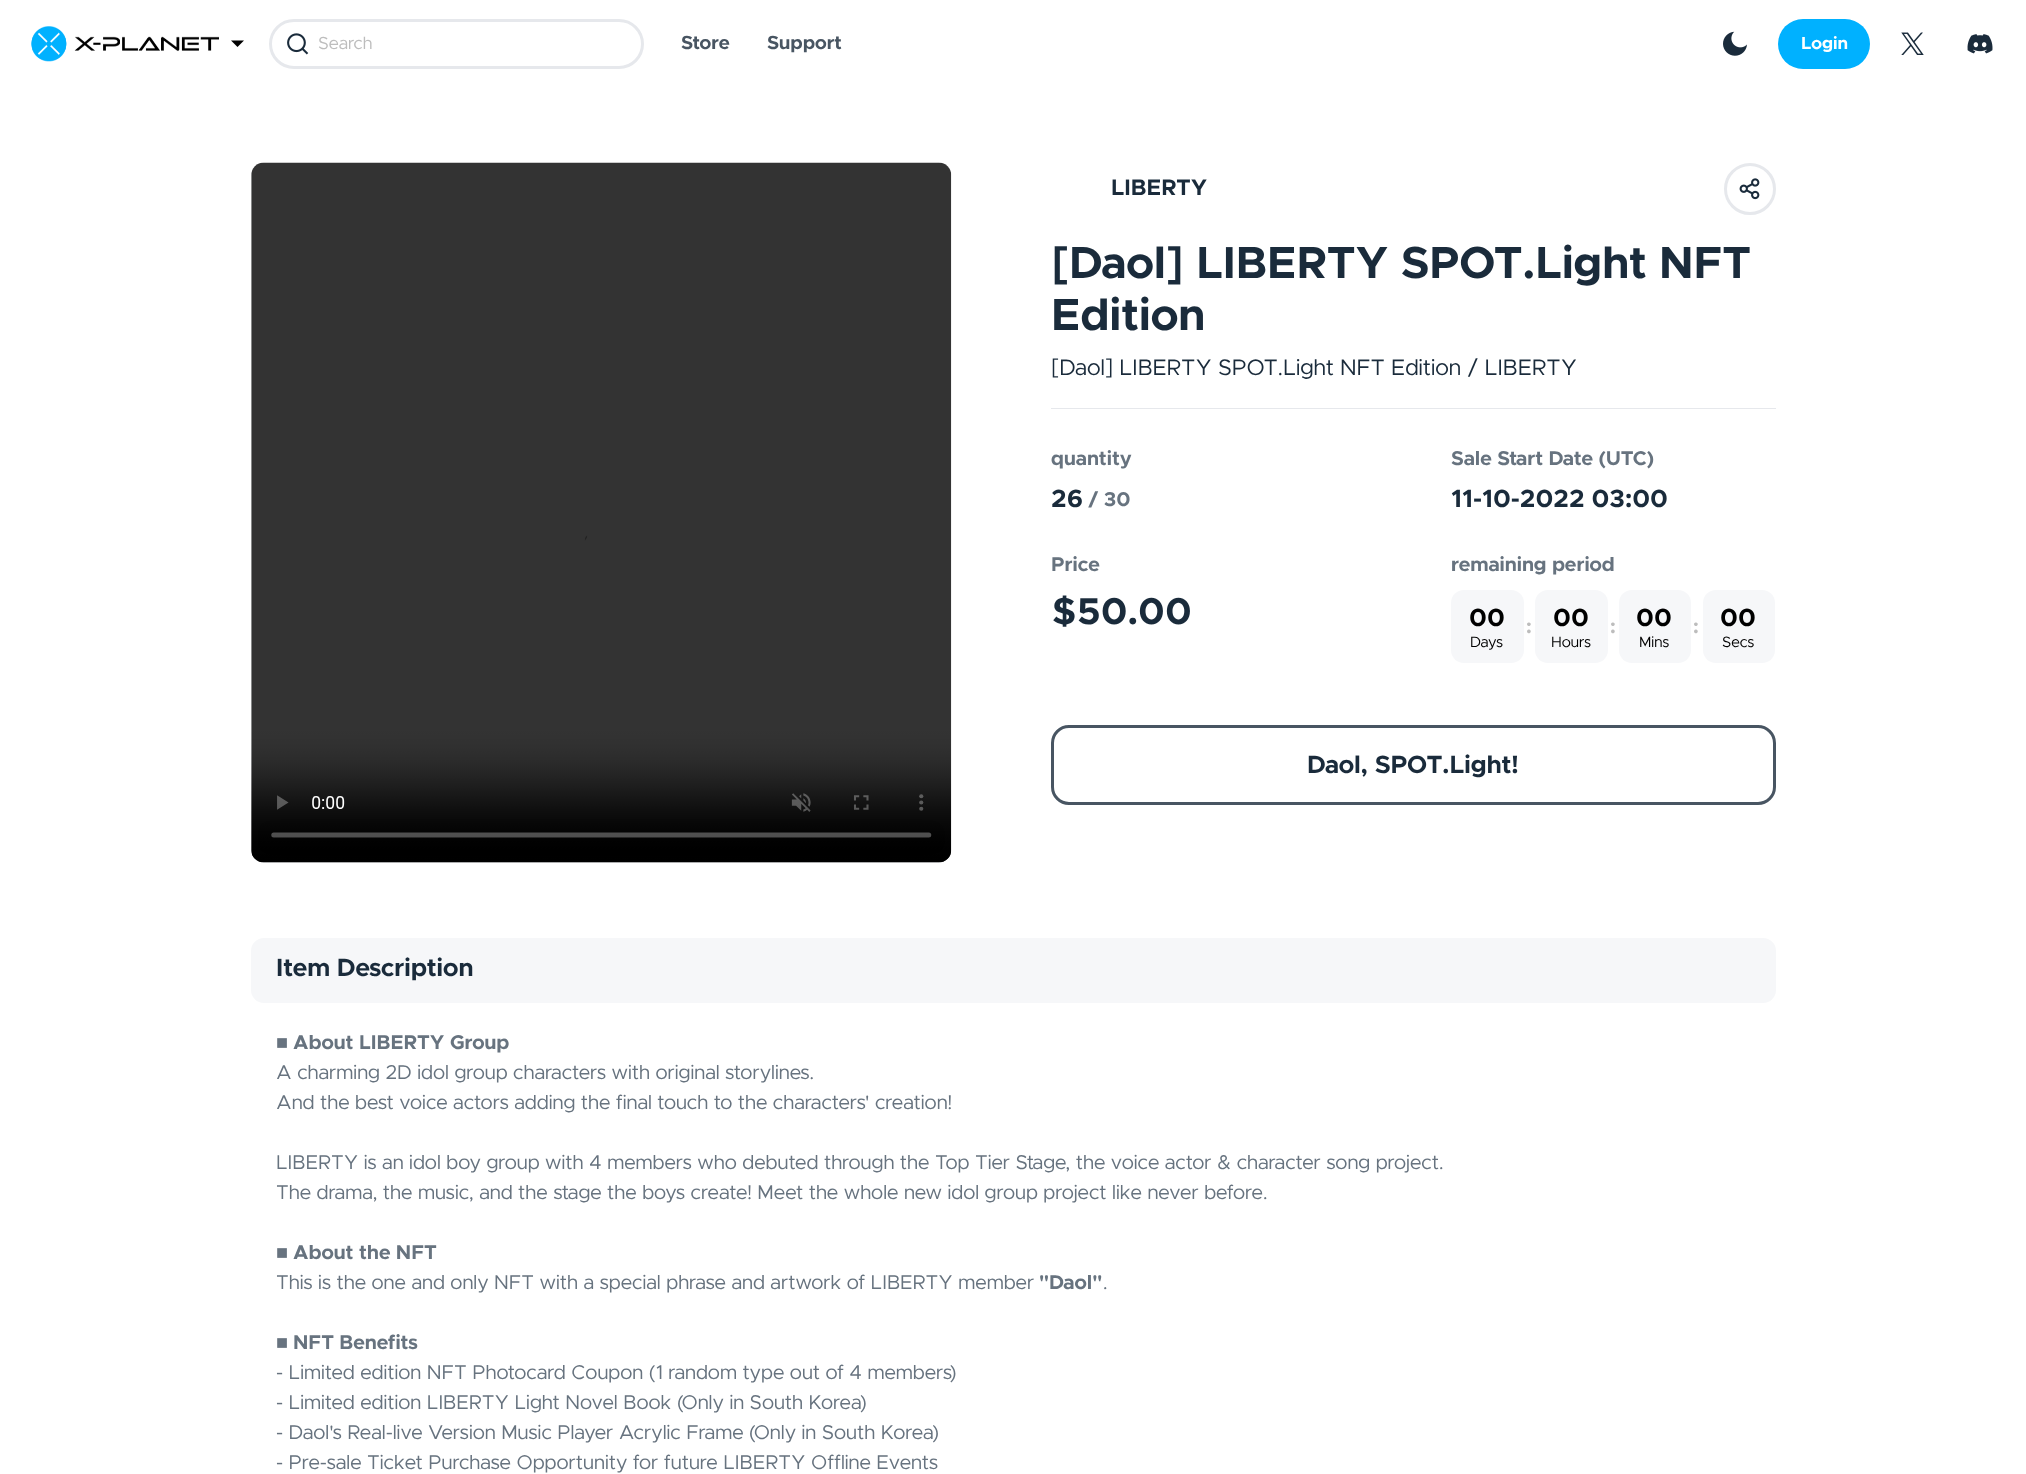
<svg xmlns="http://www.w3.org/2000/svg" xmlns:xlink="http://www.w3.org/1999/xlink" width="2026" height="1474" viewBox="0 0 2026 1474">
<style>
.cls-1{font:17.5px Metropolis;fill:#bdbdbd}
.cls-2{font:bold 19px Metropolis;fill:#485562}
.cls-3{font:bold 17.5px Metropolis;fill:#ffffff}
.cls-4{font:bold 22.5px Metropolis;fill:#1a2b3b}
.cls-5{font:bold 45px Metropolis;fill:#1a2b3b}
.cls-6{font:22.5px Metropolis;fill:#1a2b3b}
.cls-7{font:bold 20px Metropolis;fill:#67737f}
.cls-8{font:bold 25px Metropolis;fill:#1a2b3b}
.cls-9{font:bold 37.5px Metropolis;fill:#1a2b3b}
.cls-10{font:bold 25px Metropolis;fill:#000000}
.cls-11{font:15px Metropolis;fill:#000000}
.cls-12{font:bold 20px Metropolis;fill:#bdbdbd}
.cls-13{font:20px Liberation Sans;fill:#67737f}
.cls-14{font:20px Metropolis;fill:#67737f}
</style>
<rect width="100%" height="100%" fill="#ffffff"/>
<image xlink:href="image0.png" x="31" y="26" width="188" height="36"/>
<path fill="#000000" d="M231 40.5H244L237.5 47Z"/>
<image xlink:href="image1.png" x="287" y="33" width="22" height="22"/>
<rect fill="none" stroke="#e6e8ec" stroke-width="3" x="270.5" y="20.5" width="372" height="47" rx="23.5"/>
<image xlink:href="image2.png" x="1723" y="31" width="24" height="25"/>
<rect fill="#00b1ff" x="1778" y="19" width="92" height="50" rx="25"/>
<image xlink:href="image3.png" x="1901" y="32" width="23" height="23"/>
<image xlink:href="image4.png" x="1967" y="34" width="26" height="20"/>
<rect fill="#f6f7f9" x="251" y="163" width="700" height="700" rx="13"/>
<image xlink:href="image5.png" x="251" y="162" width="701" height="701"/>
<image xlink:href="image6.png" x="1739" y="178" width="21" height="22"/>
<circle fill="none" stroke="#e6e8ec" stroke-width="3" cx="1750" cy="189" r="24.5"/>
<rect fill="#e6e8ec" x="1051" y="408" width="725" height="1"/>
<rect fill="#f6f7f9" x="1451" y="590" width="73" height="73" rx="13"/>
<rect fill="#f6f7f9" x="1535" y="590" width="73" height="73" rx="13"/>
<rect fill="#f6f7f9" x="1619" y="590" width="72" height="73" rx="13"/>
<rect fill="#f6f7f9" x="1703" y="590" width="72" height="73" rx="13"/>
<rect fill="none" stroke="#485562" stroke-width="3" x="1052.5" y="726.5" width="722" height="77" rx="16.5"/>
<rect fill="#f6f7f9" x="251" y="938" width="1525" height="65" rx="13"/>
<text class="cls-1" x="318" y="49">Search</text>
<text class="cls-2" x="681" y="49">Store</text>
<text class="cls-2" x="767" y="49">Support</text>
<text class="cls-3" x="1801" y="49">Login</text>
<text class="cls-4" x="1111" y="195">LIBERTY</text>
<text class="cls-5"><tspan x="1051" y="278">[Daol] LIBERTY SPOT.Light NFT</tspan><tspan x="1051" y="330">Edition</tspan></text>
<text class="cls-6" x="1051" y="375">[Daol] LIBERTY SPOT.Light NFT Edition / LIBERTY</text>
<text class="cls-7" x="1051" y="465">quantity</text>
<text class="cls-8" x="1051" y="507">26</text>
<text class="cls-7" x="1088" y="506">/ 30</text>
<text class="cls-7" x="1451" y="465">Sale Start Date (UTC)</text>
<text class="cls-8" x="1451" y="507">11-10-2022 03:00</text>
<text class="cls-7" x="1051" y="571">Price</text>
<text class="cls-9" x="1051" y="624">$50.00</text>
<text class="cls-7" x="1451" y="571">remaining period</text>
<text class="cls-10" x="1469" y="626">00</text>
<text class="cls-11" x="1470" y="647">Days</text>
<text class="cls-12" x="1526" y="633">:</text>
<text class="cls-10" x="1553" y="626">00</text>
<text class="cls-11" x="1551" y="647">Hours</text>
<text class="cls-12" x="1610" y="633">:</text>
<text class="cls-10" x="1636" y="626">00</text>
<text class="cls-11" x="1639" y="647">Mins</text>
<text class="cls-12" x="1693" y="633">:</text>
<text class="cls-10" x="1720" y="626">00</text>
<text class="cls-11" x="1722" y="647">Secs</text>
<text class="cls-8" x="1307" y="773">Daol, SPOT.Light!</text>
<text class="cls-8" x="276" y="976">Item Description</text>
<text class="cls-13" x="276" y="1049">■</text>
<text class="cls-7" x="293" y="1049">About LIBERTY Group</text>
<text class="cls-14"><tspan x="276" y="1079">A charming 2D idol group characters with original storylines.</tspan><tspan x="276" y="1109">And the best voice actors adding the final touch to the characters' creation!</tspan></text>
<text class="cls-14"><tspan x="276" y="1169">LIBERTY is an idol boy group with 4 members who debuted through the Top Tier Stage, the voice actor &amp; character song project.</tspan><tspan x="276" y="1199">The drama, the music, and the stage the boys create! Meet the whole new idol group project like never before.</tspan></text>
<text class="cls-13" x="276" y="1259">■</text>
<text class="cls-7" x="293" y="1259">About the NFT</text>
<text class="cls-14" x="276" y="1289">This is the one and only NFT with a special phrase and artwork of LIBERTY member</text>
<text class="cls-7" x="1039" y="1289">"Daol"</text>
<text class="cls-14" x="1103" y="1289">.</text>
<text class="cls-13" x="276" y="1349">■</text>
<text class="cls-7" x="293" y="1349">NFT Benefits</text>
<text class="cls-14"><tspan x="276" y="1379">- Limited edition NFT Photocard Coupon (1 random type out of 4 members)</tspan><tspan x="276" y="1409">- Limited edition LIBERTY Light Novel Book (Only in South Korea)</tspan><tspan x="276" y="1439">- Daol's Real-live Version Music Player Acrylic Frame (Only in South Korea)</tspan><tspan x="276" y="1469">- Pre-sale Ticket Purchase Opportunity for future LIBERTY Offline Events</tspan></text>
</svg>
